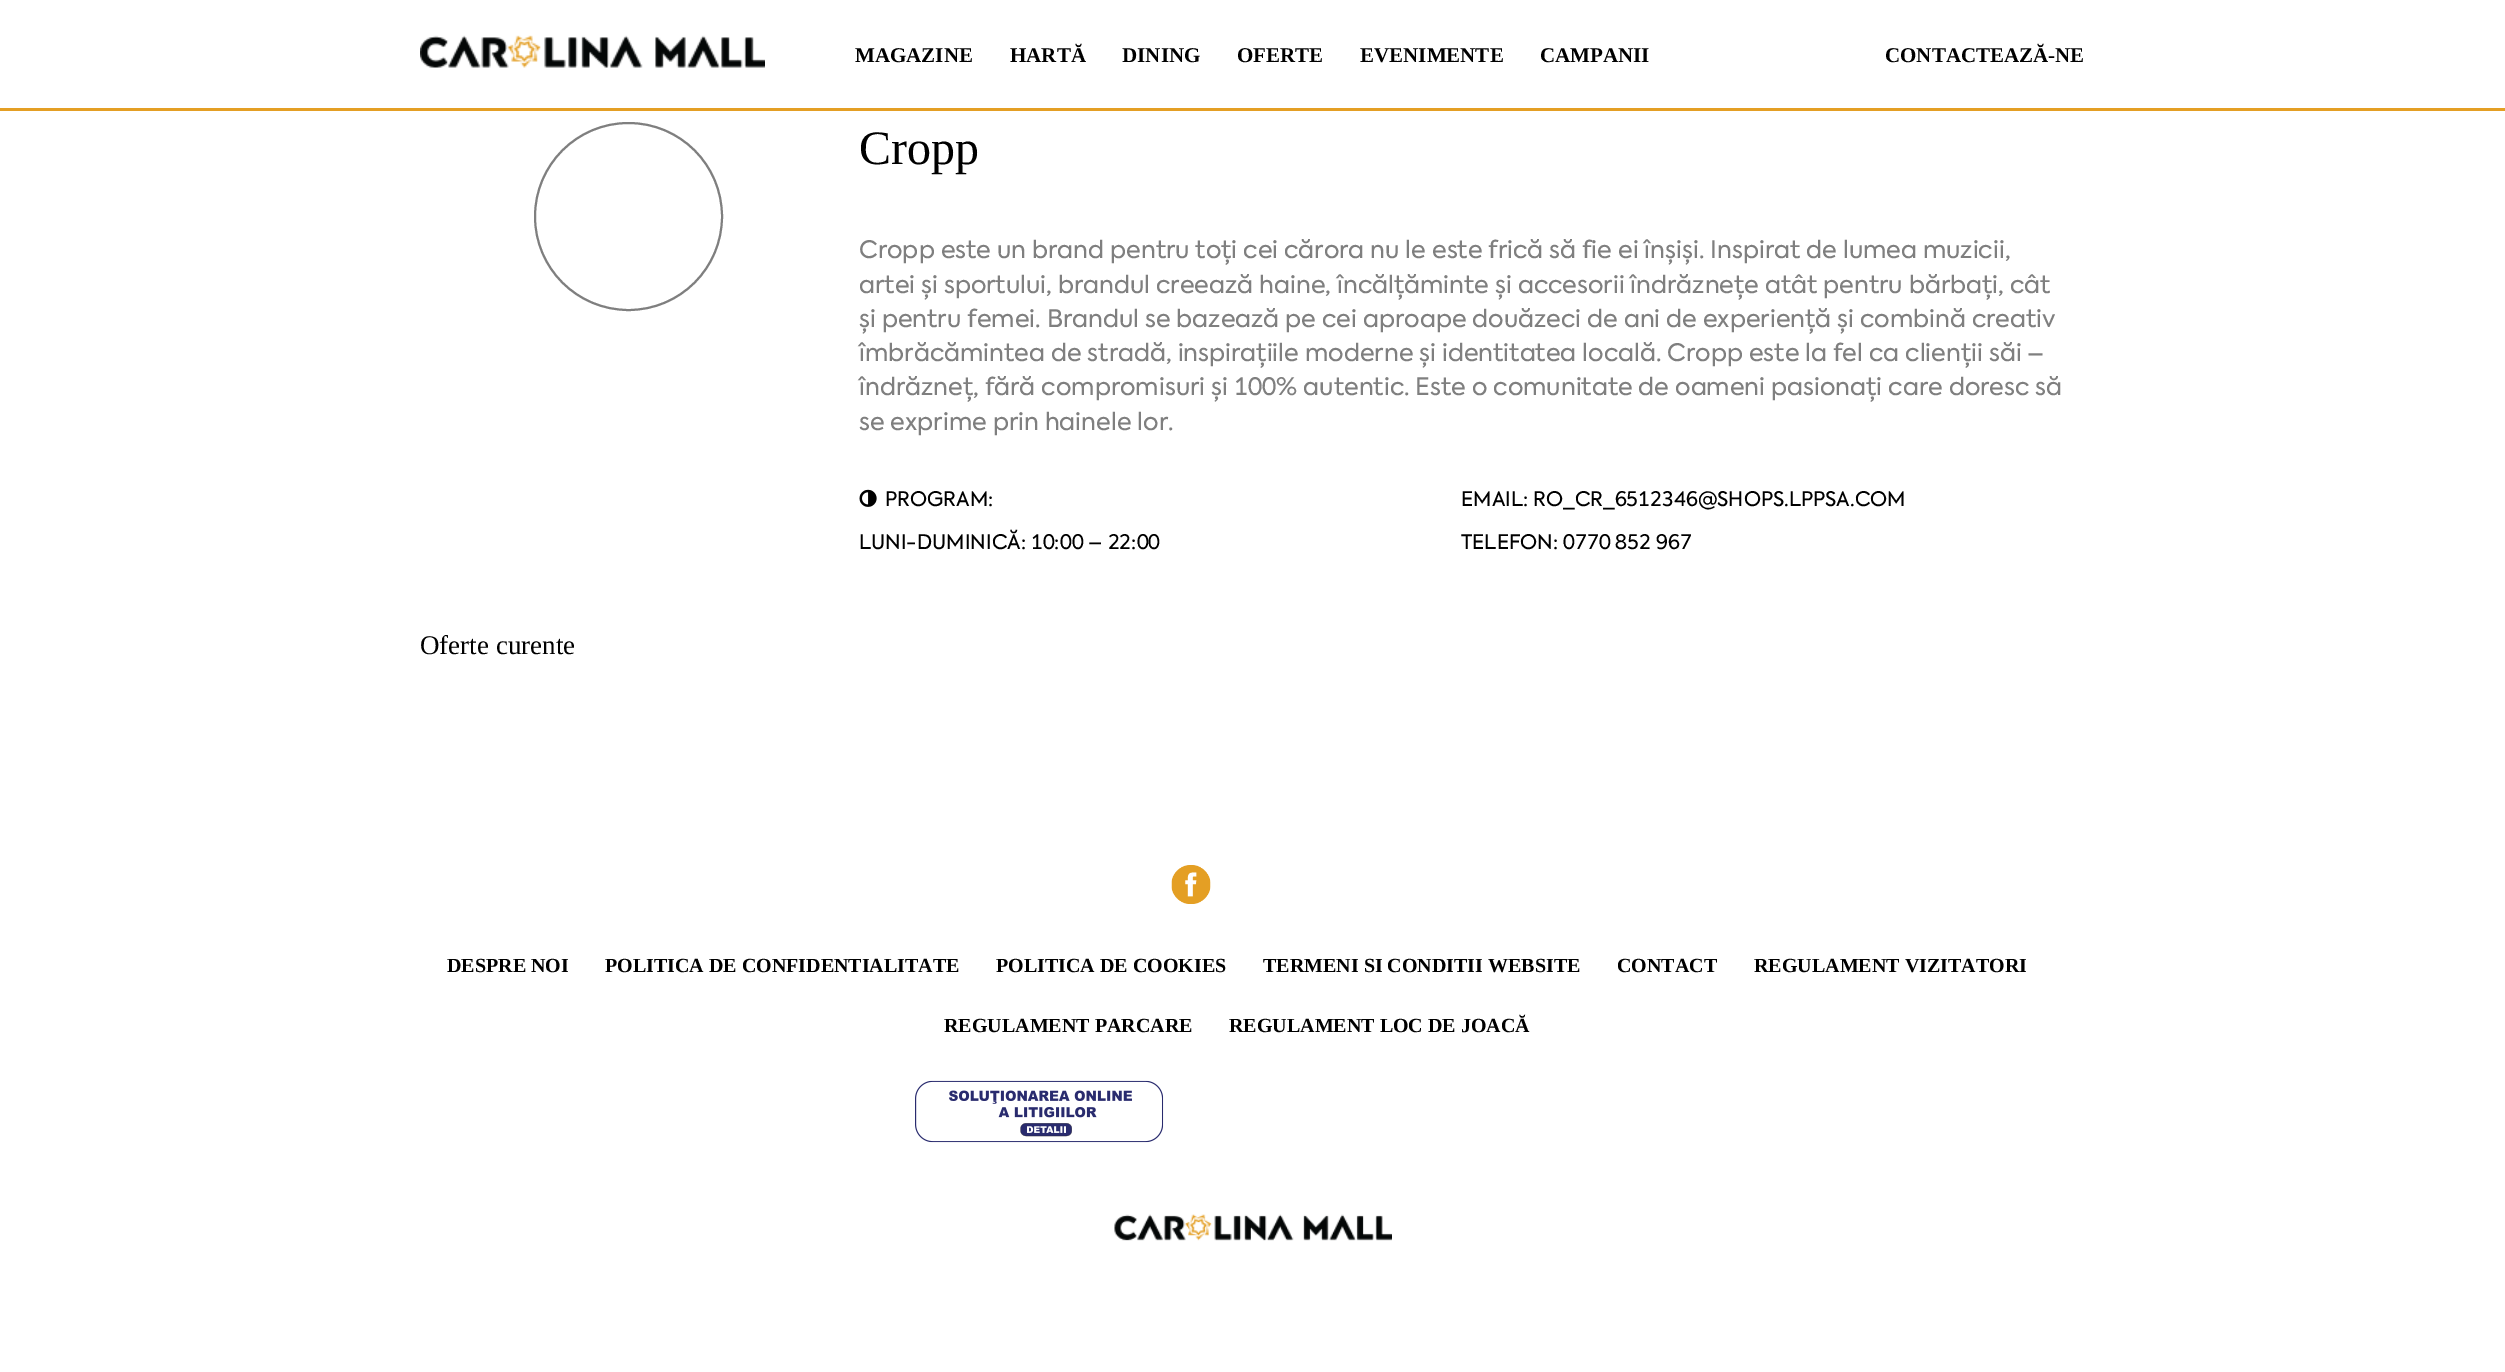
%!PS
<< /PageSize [2505 1372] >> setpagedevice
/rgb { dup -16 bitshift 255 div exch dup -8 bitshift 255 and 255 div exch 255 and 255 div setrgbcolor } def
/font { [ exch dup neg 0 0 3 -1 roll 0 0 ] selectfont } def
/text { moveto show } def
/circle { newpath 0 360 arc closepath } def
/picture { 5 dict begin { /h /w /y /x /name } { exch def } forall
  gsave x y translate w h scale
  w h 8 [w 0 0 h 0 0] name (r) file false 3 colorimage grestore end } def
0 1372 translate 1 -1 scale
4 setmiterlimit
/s1 { /LiberationSerif-Bold 21 font 16#000000 rgb } def
/s2 { /LiberationSerif-Regular 48 font 16#000000 rgb } def
/s3 { /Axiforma-Regular 24 font 16#7F7F7F rgb } def
/s4 { /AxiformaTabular-Regular 24 font 16#7F7F7F rgb } def
/s5 { /Axiforma-Regular 20 font 16#000000 rgb } def
/s6 { /AxiformaTabular-Regular 20 font 16#000000 rgb } def
/s7 { /LiberationSerif-Regular 27 font 16#000000 rgb } def
/s8 { /LiberationSerif-Bold 20 font 16#000000 rgb } def
16#FFFFFF rgb
0 0 2505 1372 rectfill
16#E49F24 rgb
0 108 2505 3 rectfill
(pic1.raw) 420 35 345 33 picture
s1
(MAGAZINE) 855 62 text
(HARTĂ) 1010 62 text
(DINING) 1122 62 text
(OFERTE) 1237 62 text
(EVENIMENTE) 1360 62 text
(CAMPANII) 1540 62 text
(CONTACTEAZĂ-NE) 1885 62 text
16#7F7F7F rgb
2 setlinewidth
628.5 216.5 93.5 circle stroke
s2
(Cropp) 859 164 text
s3
(Cropp este un brand pentru toți cei cărora nu le este frică să fie ei înșiși. Inspirat de lumea muzicii,) 859 258 text
(artei și sportului, brandul creează haine, încălțăminte și accesorii îndrăznețe atât pentru bărbați, cât) 859 293 text
(și pentru femei. Brandul se bazează pe cei aproape douăzeci de ani de experiență și combină creativ) 859 327 text
(îmbrăcămintea de stradă, inspirațiile moderne și identitatea locală. Cropp este la fel ca clienții săi –) 859 361 text
s4
(îndrăzneț, fără compromisuri și 100% autentic. Este o comunitate de oameni pasionați care doresc să) 859 395 text
s3
(se exprime prin hainele lor.) 859 430 text
(pic2.raw) 859 489 18 18 picture
s5
(PROGRAM:) 885 506 text
s6
(LUNI-DUMINICĂ: 10:00 – 22:00) 859 549 text
s5
(EMAIL:) 1461 506 text
s6
(RO_CR_6512346@SHOPS.LPPSA.COM) 1533 506 text
s5
(TELEFON:) 1461 549 text
s6
(0770 852 967) 1563 549 text
s7
(Oferte curente) 420 654 text
(pic3.raw) 1171 865 40 39 picture
s8
(DESPRE NOI) 447 972 text
(POLITICA DE CONFIDENTIALITATE) 605 972 text
(POLITICA DE COOKIES) 996 972 text
(TERMENI SI CONDITII WEBSITE) 1263 972 text
(CONTACT) 1617 972 text
(REGULAMENT VIZITATORI) 1754 972 text
(REGULAMENT PARCARE) 944 1032 text
(REGULAMENT LOC DE JOACĂ) 1229 1032 text
(pic4.raw) 915 1080 249 63 picture
(pic5.raw) 1114 1214 278 27 picture
showpage
